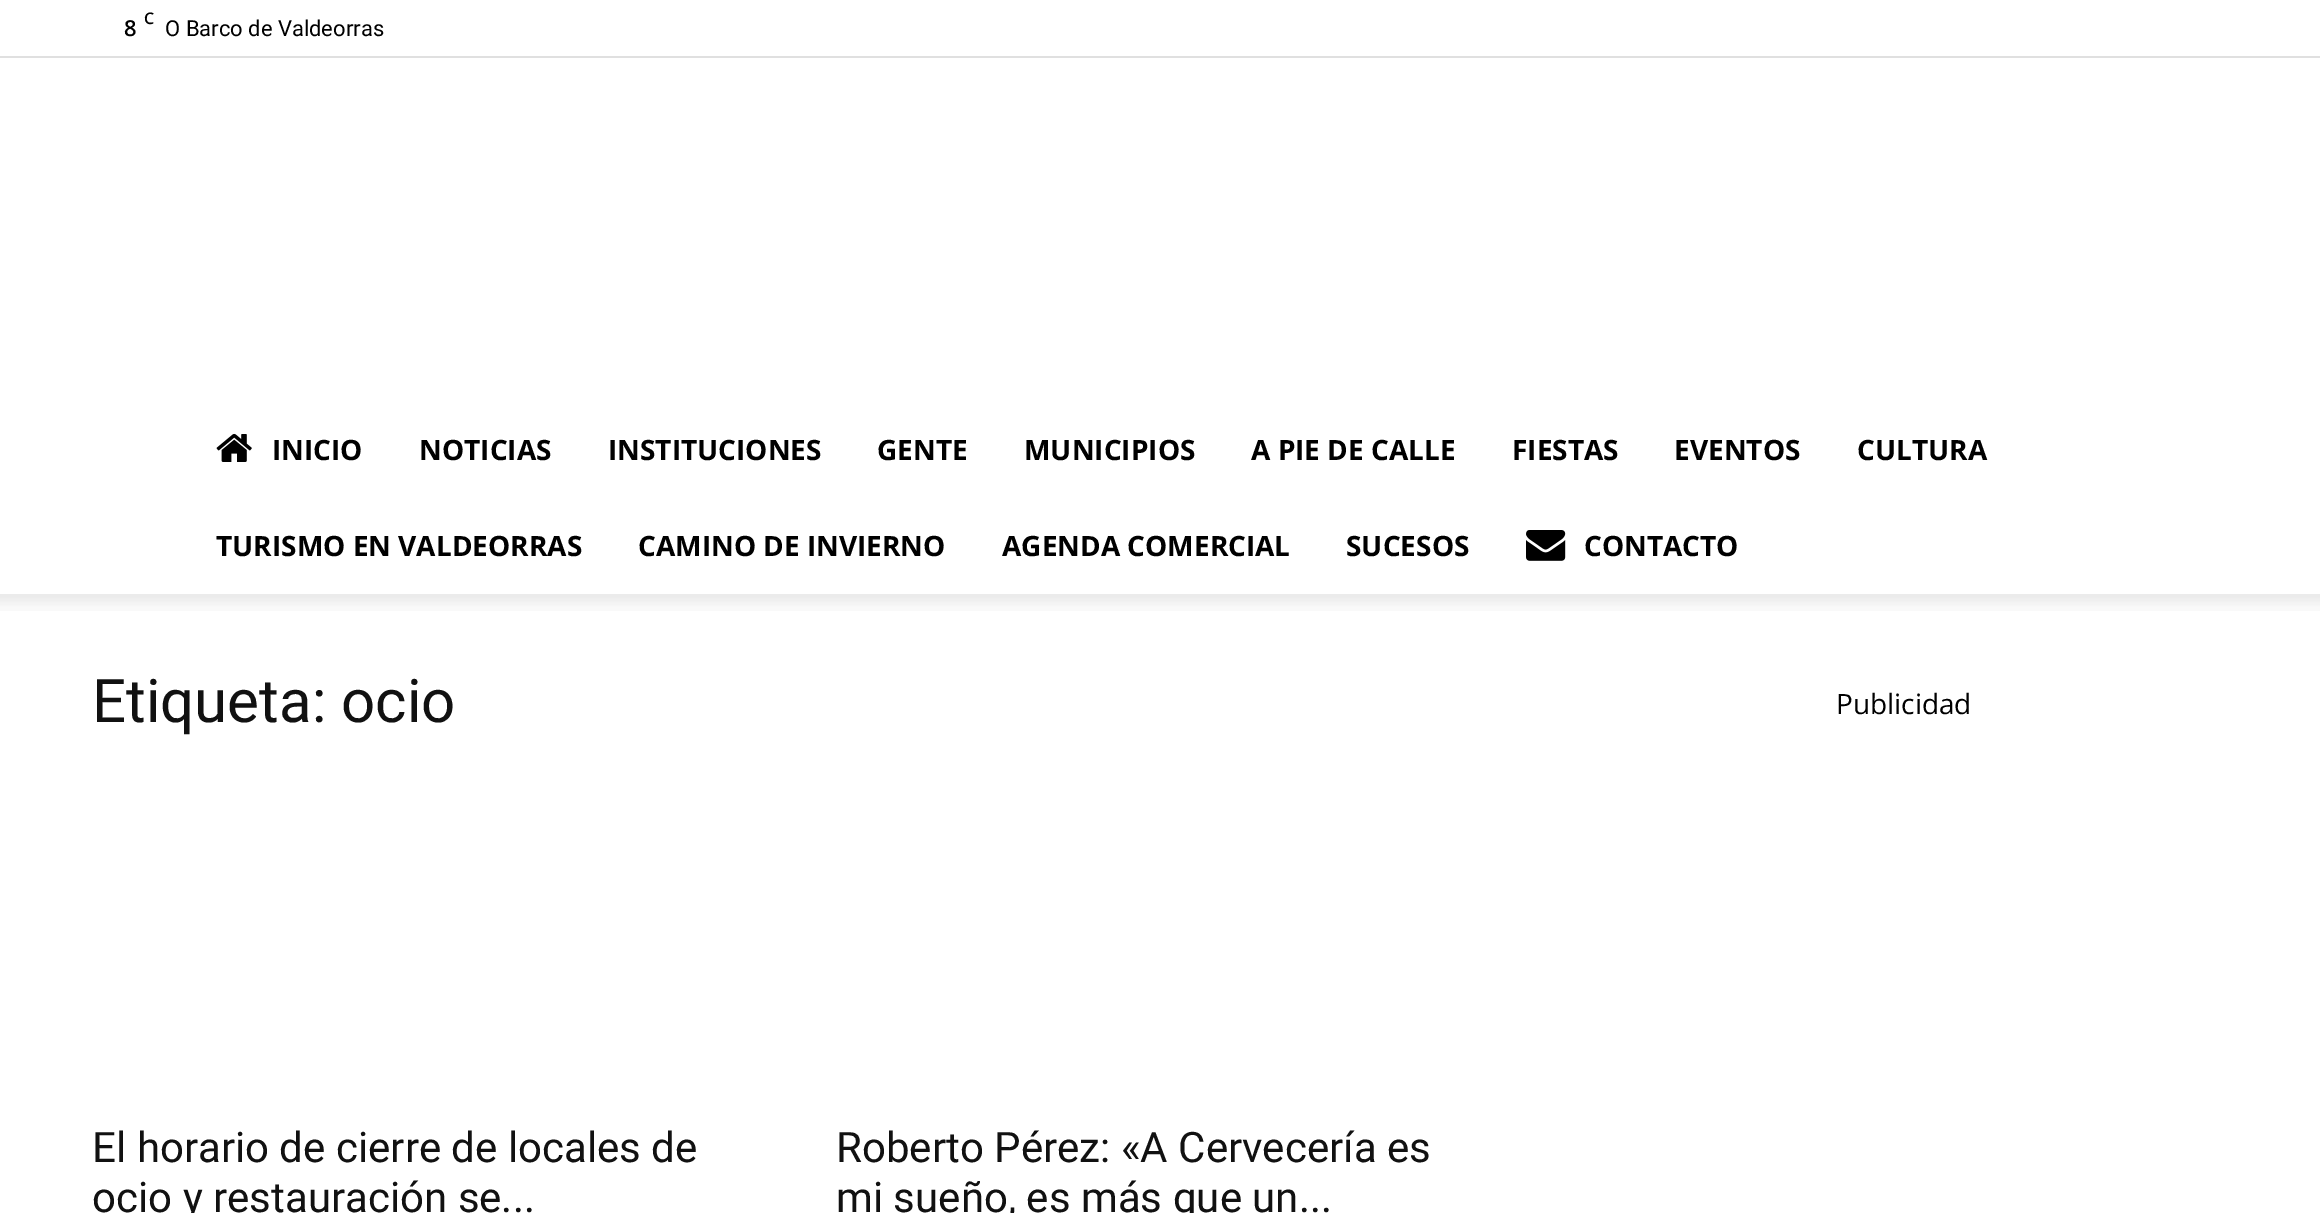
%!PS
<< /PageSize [2320 1213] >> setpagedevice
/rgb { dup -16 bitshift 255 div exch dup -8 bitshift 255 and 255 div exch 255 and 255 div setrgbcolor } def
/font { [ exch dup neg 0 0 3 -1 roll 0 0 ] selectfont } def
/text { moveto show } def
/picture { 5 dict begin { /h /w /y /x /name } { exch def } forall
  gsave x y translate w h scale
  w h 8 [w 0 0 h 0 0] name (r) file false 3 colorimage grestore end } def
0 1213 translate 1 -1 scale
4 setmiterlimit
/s1 { /OpenSans-SemiBold 16 font 16#000000 rgb } def
/s2 { /OpenSans-SemiBold 22 font 16#000000 rgb } def
/s3 { /Roboto-Regular 22 font 16#000000 rgb } def
/s4 { /OpenSans-Bold 28 font 16#000000 rgb } def
/s5 { /Roboto-Regular 60 font 16#111111 rgb } def
/s6 { /Roboto-Regular 42 font 16#111111 rgb } def
/s7 { /OpenSans-Regular 28 font 16#000000 rgb } def
16#FFFFFF rgb
0 0 2320 1213 rectfill
16#E0E0E0 rgb
0 56 2320 2 rectfill
s1
(C) 144 24 text
s2
(8) 124 36 text
s3
(O Barco de Valdeorras) 165 36 text
(pic1.raw) 216 433 36 29 picture
s4
(INICIO) 272 460 text
(NOTICIAS) 419 460 text
(INSTITUCIONES) 608 460 text
(GENTE) 877 460 text
(MUNICIPIOS) 1024 460 text
(A PIE DE CALLE) 1251 460 text
(FIESTAS) 1512 460 text
(EVENTOS) 1674 460 text
(CULTURA) 1857 460 text
(TURISMO EN VALDEORRAS) 216 556 text
(CAMINO DE INVIERNO) 638 556 text
(AGENDA COMERCIAL) 1002 556 text
(SUCESOS) 1346 556 text
(pic2.raw) 1526 530 40 31 picture
(CONTACTO) 1584 556 text
(pic3.raw) 0 594 2320 17 picture
s5
(Etiqueta: ocio) 92 722 text
s6
(El horario de cierre de locales de) 92 1162 text
(ocio y restauración se...) 92 1212 text
(Roberto Pérez: «A Cervecería es) 836 1162 text
(mi sueño, es más que un...) 836 1212 text
s7
(Publicidad) 1836 714 text
showpage
